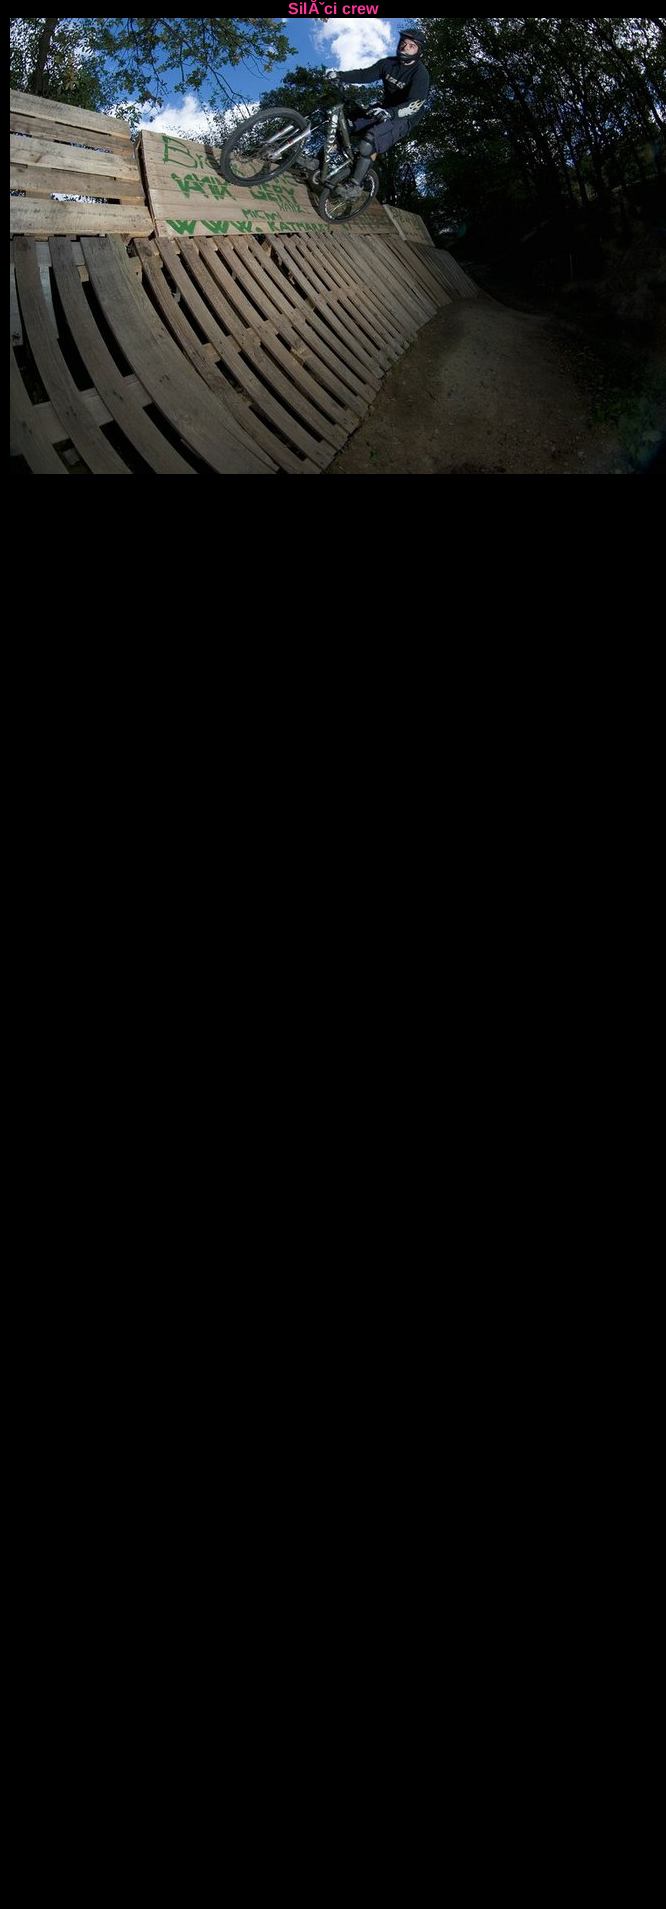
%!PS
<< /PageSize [666 1909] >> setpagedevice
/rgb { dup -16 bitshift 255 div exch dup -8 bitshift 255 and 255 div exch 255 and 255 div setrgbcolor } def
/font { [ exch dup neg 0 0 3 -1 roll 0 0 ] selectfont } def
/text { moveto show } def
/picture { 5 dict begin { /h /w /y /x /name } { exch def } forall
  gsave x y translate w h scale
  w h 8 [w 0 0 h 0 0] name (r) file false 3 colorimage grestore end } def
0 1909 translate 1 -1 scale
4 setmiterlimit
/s1 { /LiberationSans-Bold 16 font 16#FF3399 rgb } def
16#000000 rgb
0 0 666 1909 rectfill
s1
(SilĂˇci crew) 288 14 text
(pic1.raw) 10 18 656 456 picture
showpage
